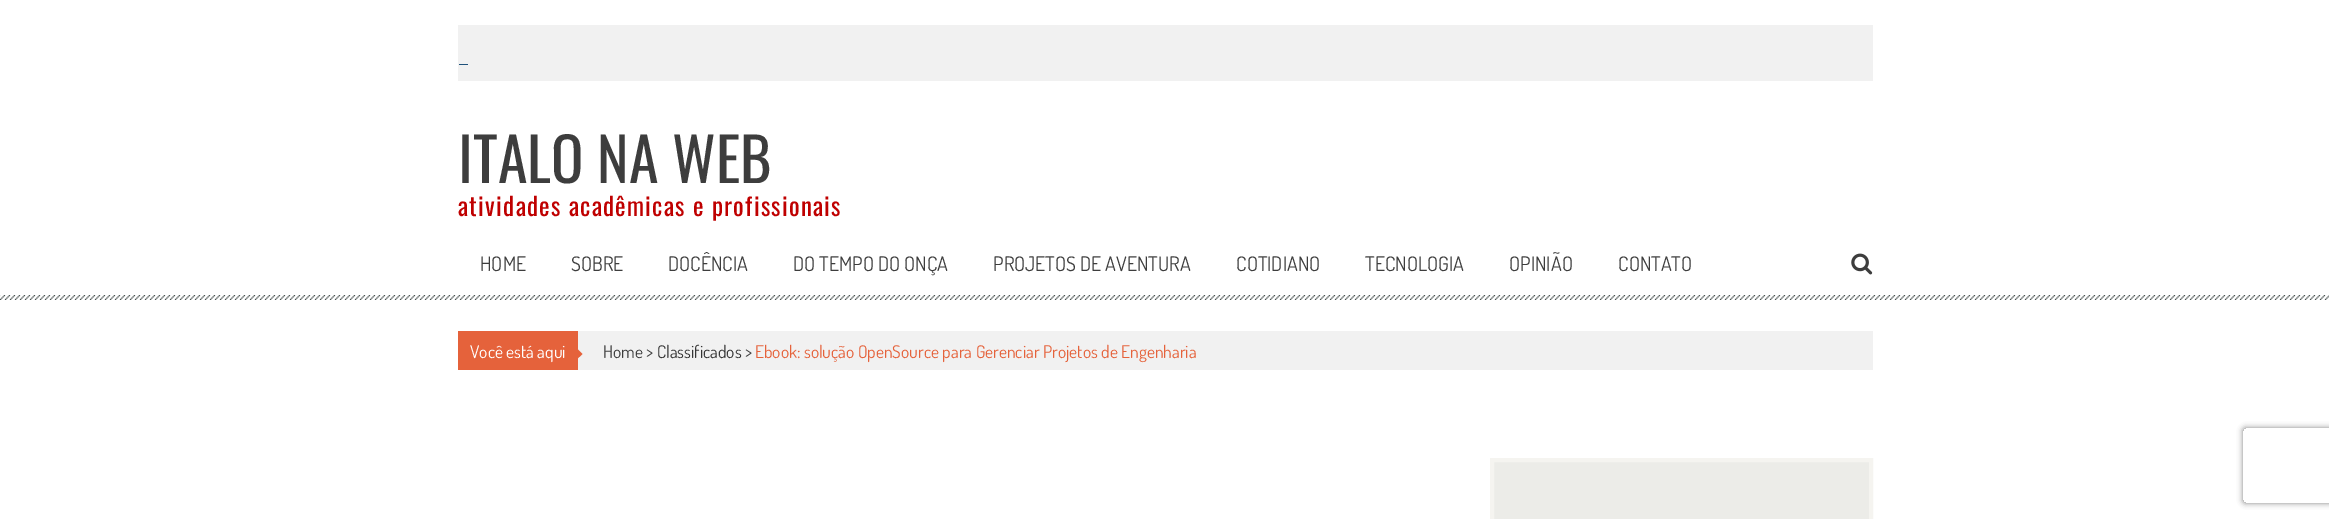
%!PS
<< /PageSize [2329 519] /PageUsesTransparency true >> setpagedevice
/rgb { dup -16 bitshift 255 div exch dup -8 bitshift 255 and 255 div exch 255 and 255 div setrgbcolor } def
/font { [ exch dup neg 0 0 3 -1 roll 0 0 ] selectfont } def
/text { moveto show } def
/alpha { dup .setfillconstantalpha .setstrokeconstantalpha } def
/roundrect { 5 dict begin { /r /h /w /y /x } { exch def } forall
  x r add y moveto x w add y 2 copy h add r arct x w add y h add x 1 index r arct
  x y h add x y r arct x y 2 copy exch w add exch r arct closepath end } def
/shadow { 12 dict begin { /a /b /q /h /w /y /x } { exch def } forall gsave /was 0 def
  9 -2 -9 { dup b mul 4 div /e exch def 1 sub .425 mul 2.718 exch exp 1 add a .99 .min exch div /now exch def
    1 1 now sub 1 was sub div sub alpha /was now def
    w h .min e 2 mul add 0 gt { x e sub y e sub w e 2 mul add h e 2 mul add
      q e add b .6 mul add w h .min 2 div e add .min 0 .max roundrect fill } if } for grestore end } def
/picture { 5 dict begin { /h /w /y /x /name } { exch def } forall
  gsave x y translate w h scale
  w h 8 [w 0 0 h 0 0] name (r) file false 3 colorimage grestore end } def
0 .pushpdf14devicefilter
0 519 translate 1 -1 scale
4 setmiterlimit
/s1 { /Oswald-Regular 60 font 16#3D3D3D rgb } def
/s2 { /Dosis-Regular 20 font 16#3D3D3D rgb } def
/s3 { /Dosis-Regular 17.5 font 16#FFFFFF rgb } def
/s4 { /Dosis-Regular 17.5 font 16#3D3D3D rgb } def
/s5 { /Dosis-Regular 17.5 font 16#363636 rgb } def
/s6 { /Dosis-Regular 17.5 font 16#E5623B rgb } def
16#FFFFFF rgb
0 0 2329 519 rectfill
16#F1F1F1 rgb
458 25 1415 56 rectfill
16#1F527B rgb
459 64 9 1 rectfill
s1
(ITALO NA WEB) 458 183 text
/Oswald-Regular 25 font
16#BF0000 rgb
458 216 moveto 1.25 0 (atividades acadêmicas e profissionais) ashow
(pic1.raw) 0 295 2329 5 picture
s2
(HOME) 480 271 text
(SOBRE) 571 271 text
(DOCÊNCIA) 668 271 text
(DO TEMPO DO ONÇA) 793 271 text
(PROJETOS DE AVENTURA) 993 271 text
(COTIDIANO) 1236 271 text
(TECNOLOGIA) 1365 271 text
(OPINIÃO) 1509 271 text
(CONTATO) 1618 271 text
(pic2.raw) 1851 253 22 22 picture
16#F1F1F1 rgb
578 331 1295 39 rectfill
16#E5623B rgb
458 331 120 39 rectfill
s3
(Você está aqui) 470 358 text
16#E5623B rgb
576 360 moveto 576 347.5 lineto 582.5 354 lineto closepath fill
s4
(Home >) 603 358 text
s5
(Classificados) 657 358 text
s4
(>) 745 358 text
s6
(Ebook: solução OpenSource para Gerenciar Projetos de Engenharia) 755 358 text
16#ECECE8 rgb
1492 460 moveto 1871 460 lineto 1871 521 lineto 1492 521 lineto closepath gsave fill grestore
16#F5F4F0 rgb
4 setlinewidth
stroke
gsave
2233 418 moveto 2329 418 lineto 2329 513 lineto 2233 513 lineto closepath 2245.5 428 moveto 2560.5 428 lineto 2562 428 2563 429 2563 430.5 curveto 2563 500.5 lineto 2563 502 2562 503 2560.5 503 curveto 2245.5 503 lineto 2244 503 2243 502 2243 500.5 curveto 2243 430.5 lineto 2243 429 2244 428 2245.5 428 curveto closepath eoclip newpath
16#808080 rgb
2243 428 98 75 2.5 3 1 shadow
grestore
.poppdf14devicefilter showpage
